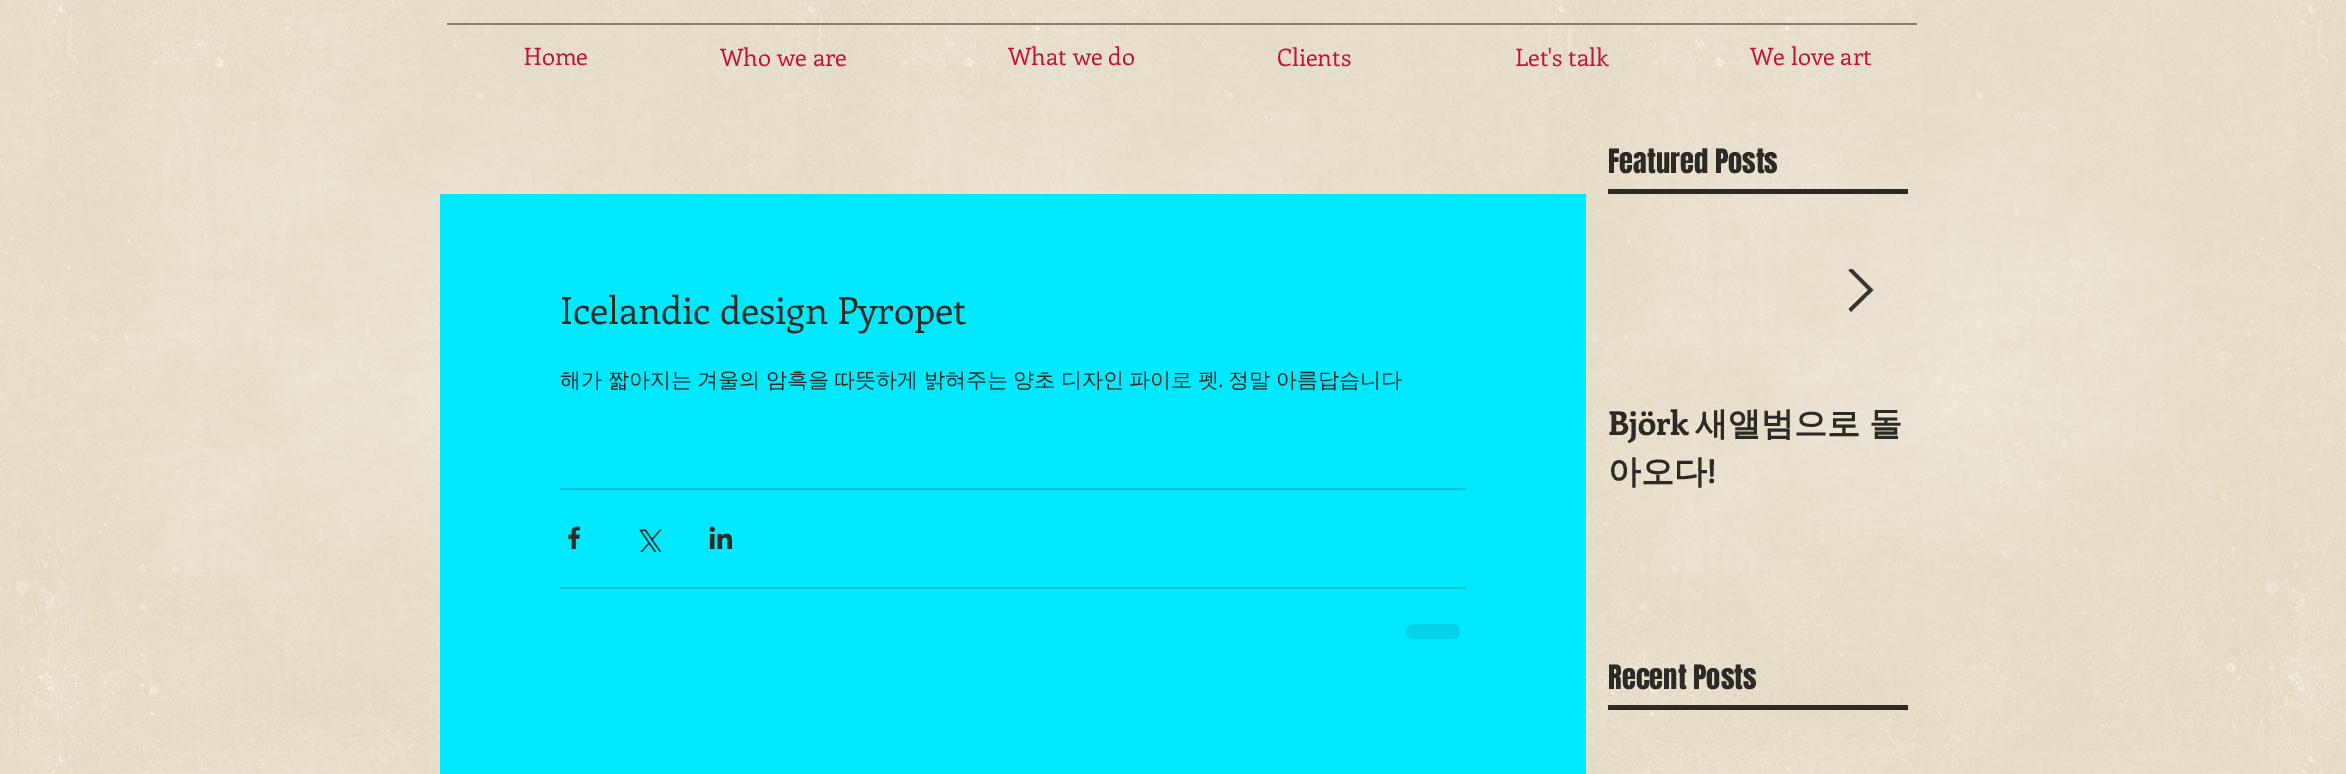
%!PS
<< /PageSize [2346 774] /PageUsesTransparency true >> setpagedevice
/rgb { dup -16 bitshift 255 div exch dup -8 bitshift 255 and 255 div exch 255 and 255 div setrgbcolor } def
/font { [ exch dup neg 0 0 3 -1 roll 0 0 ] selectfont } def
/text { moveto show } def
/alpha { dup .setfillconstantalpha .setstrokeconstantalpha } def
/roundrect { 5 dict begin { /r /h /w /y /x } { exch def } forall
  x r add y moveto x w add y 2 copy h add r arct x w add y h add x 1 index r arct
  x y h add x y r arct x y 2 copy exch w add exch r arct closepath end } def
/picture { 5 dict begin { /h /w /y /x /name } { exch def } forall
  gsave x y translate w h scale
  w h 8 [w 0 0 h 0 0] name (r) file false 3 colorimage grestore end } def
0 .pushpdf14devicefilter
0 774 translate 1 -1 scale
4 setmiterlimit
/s1 { /Enriqueta-Regular 24 font 16#BF1338 rgb } def
/s2 { /Anton-Regular 28.5 font 16#2C2A25 rgb } def
/s3 { /Enriqueta-Regular 37.5 font 16#2C2A25 rgb } def
/s4 { /OpenSans-Regular 21 font 16#2C2A25 rgb } def
/s5 { /Enriqueta-Bold 33 font 16#2C2A25 rgb } def
/s6 { /WenQuanYiZenHei-Bold 33 font 16#2C2A25 rgb } def
16#E3D9C2 rgb
0 0 2346 774 rectfill
(pic1.raw) 0 0 2346 774 picture
16#857F6F rgb
447 23 1470 2 rectfill
s1
(Home) 524 65 text
(Who we are) 720 66 text
(What we do) 1008 65 text
(Clients) 1277 66 text
(Let's talk) 1515 66 text
(We love art) 1750 65 text
s2
(Featured Posts) 1608 173 text
1608 189 300 5 rectfill
16#00E9FF rgb
440 194 1146 580 rectfill
s3
(Icelandic design Pyropet) 560 324 text
/WenQuanYiZenHei-Medium 21 font
560 387 moveto -0.75 0 32 (해가 짧아지는 겨울의 암흑을 따뜻하게 밝혀주는 양초 디자인 파이로 펫) widthshow
s4
(.) 1218 387 text
/WenQuanYiZenHei-Medium 21 font
1228 387 moveto -0.75 0 32 (정말 아름답습니다) widthshow
16#09C3D3 rgb
560 488 906 2 rectfill
(pic2.raw) 568 526 12 23 picture
(pic3.raw) 639 529 23 23 picture
(pic4.raw) 709 526 23 23 picture
560 587 906 2 rectfill
16#05D2E5 rgb
1406 624 54 15 7.5 roundrect fill
0.9 alpha
16#2C2A25 rgb
1849 270 moveto 1851 269 lineto 1872 290 lineto 1851 311 lineto 1849 309 lineto 1869 290 lineto closepath fill
gsave
1847 269 27 45 rectclip
1.2 setlinewidth
1849.5 270.5 moveto 1851 268.5 lineto 1872.5 290 lineto 1851 311 lineto 1849.5 309 lineto 1869 290 lineto closepath stroke
grestore
1 alpha
s5
(Björk) 1608 435 text
/WenQuanYiZenHei-Bold 33 font
1695 435 moveto -1 0 32 (새앨범으로 돌) widthshow
(아오다) 1608 483 text
s5
(!) 1707 483 text
s2
(Recent Posts) 1608 689 text
1608 705 300 5 rectfill
.poppdf14devicefilter showpage
